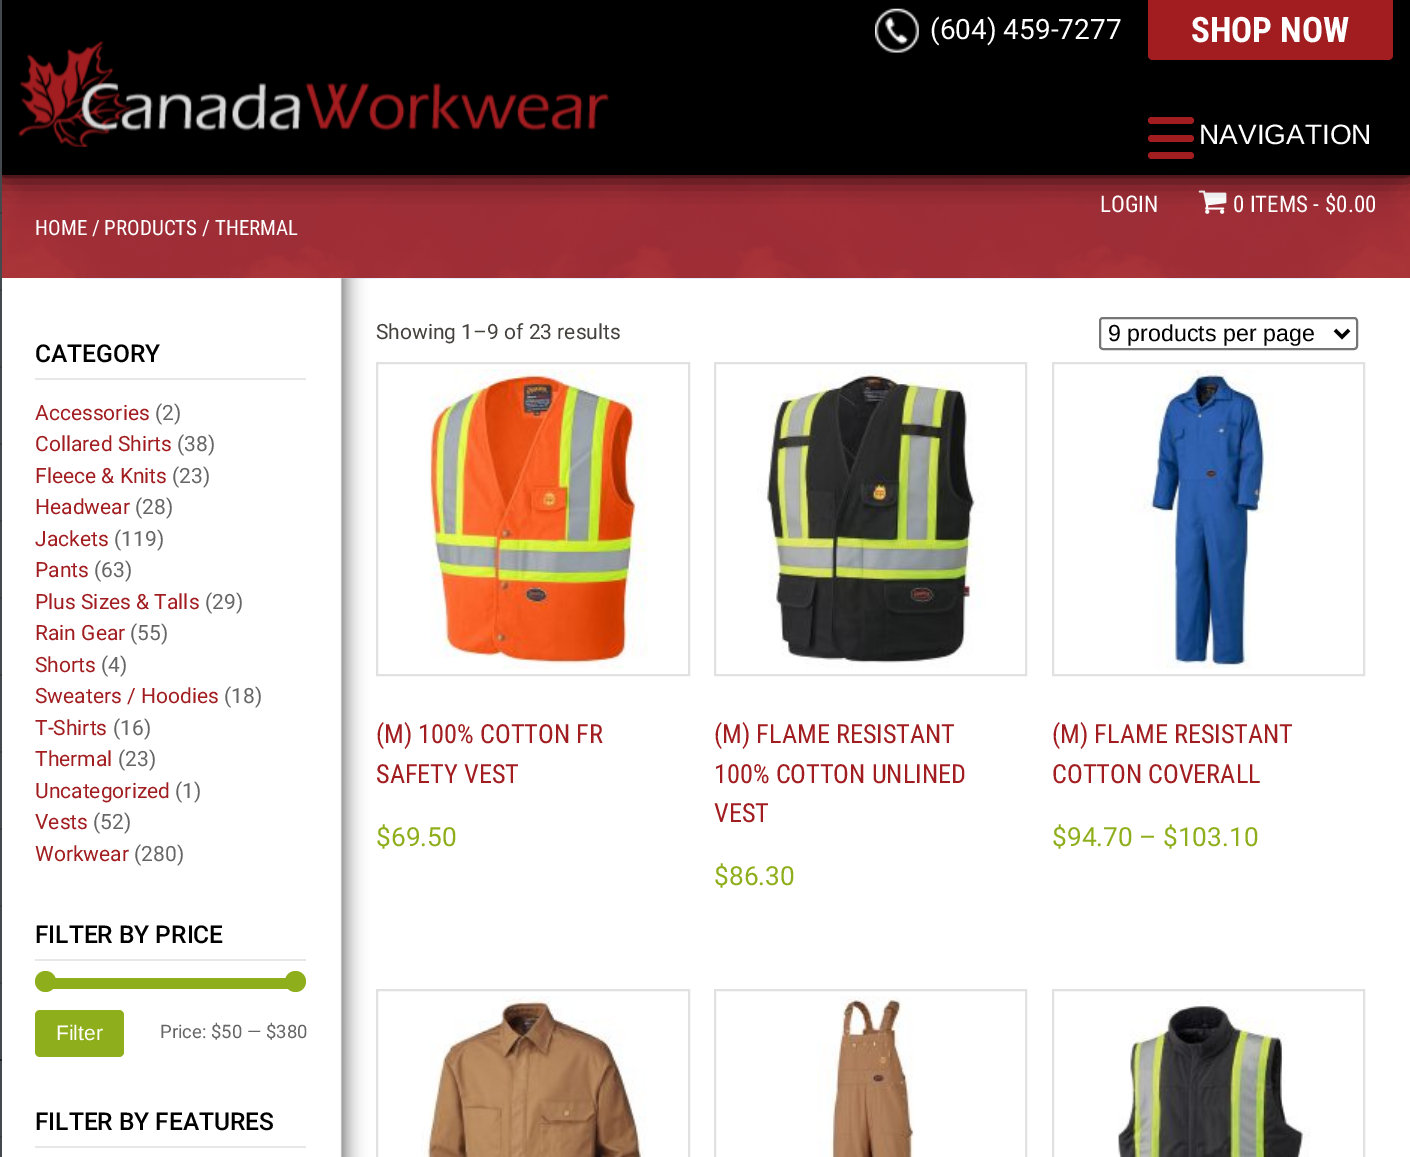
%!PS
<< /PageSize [1410 1157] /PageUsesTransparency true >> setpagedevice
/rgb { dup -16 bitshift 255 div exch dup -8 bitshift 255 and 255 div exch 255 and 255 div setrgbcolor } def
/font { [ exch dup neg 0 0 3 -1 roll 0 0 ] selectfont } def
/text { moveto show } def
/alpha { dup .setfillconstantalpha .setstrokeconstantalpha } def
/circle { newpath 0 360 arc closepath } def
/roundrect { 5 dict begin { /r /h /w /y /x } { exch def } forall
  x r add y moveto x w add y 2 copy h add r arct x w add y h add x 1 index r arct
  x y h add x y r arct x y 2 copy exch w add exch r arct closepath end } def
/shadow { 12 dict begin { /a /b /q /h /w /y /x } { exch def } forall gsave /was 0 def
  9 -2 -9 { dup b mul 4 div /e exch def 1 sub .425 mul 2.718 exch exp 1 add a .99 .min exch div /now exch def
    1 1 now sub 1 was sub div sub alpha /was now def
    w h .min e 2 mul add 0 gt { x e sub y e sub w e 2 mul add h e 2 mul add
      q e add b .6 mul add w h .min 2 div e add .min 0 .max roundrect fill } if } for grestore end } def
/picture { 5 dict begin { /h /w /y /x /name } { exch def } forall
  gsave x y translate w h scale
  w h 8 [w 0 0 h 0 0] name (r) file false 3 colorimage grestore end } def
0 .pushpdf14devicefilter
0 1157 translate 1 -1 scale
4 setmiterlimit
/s1 { /Roboto-Regular 28 font 16#FFFFFF rgb } def
/s2 { /RobotoCondensed-Bold 35 font 16#FFFFFF rgb } def
/s3 { /LiberationSans-Regular 28 font 16#FFFFFF rgb } def
/s4 { /RobotoCondensed-Regular 23 font 16#FFFFFF rgb } def
/s5 { /RobotoCondensed-Regular 21 font 16#FFFFFF rgb } def
/s6 { /Roboto-Medium 24.5 font 16#000000 rgb } def
/s7 { /Roboto-Regular 21 font 16#A11D20 rgb } def
/s8 { /Roboto-Regular 21 font 16#666666 rgb } def
/s9 { /LiberationSans-Regular 21 font 16#FFFFFF rgb } def
/s10 { /Roboto-Regular 18.5 font 16#666666 rgb } def
/s11 { /Roboto-Regular 21 font 16#45423E rgb } def
/s12 { /LiberationSans-Regular 23.25 font 16#000000 rgb } def
/s13 { /RobotoCondensed-Regular 26.25 font 16#A11D20 rgb } def
/s14 { /Roboto-Regular 26.25 font 16#8FAE1B rgb } def
16#FFFFFF rgb
0 0 1410 1157 rectfill
(pic1.raw) 2 175 1408 104 picture
0.9 alpha
16#A11F23 rgb
2 175 1408 103 rectfill
1 alpha
(pic4.raw) 1198 190 29 24 picture
16#000000 rgb
0 0 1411 175 0 13 1 shadow
16#43494C rgb
0 0 2 1157 rectfill
16#3C3C3C rgb
0 212 2 2 rectfill
0 289 2 2 rectfill
0 366 2 2 rectfill
0 443 2 2 rectfill
0 520 2 2 rectfill
0 597 2 2 rectfill
0 674 2 2 rectfill
0 751 2 2 rectfill
0 828 2 2 rectfill
0 905 2 2 rectfill
0 982 2 2 rectfill
16#212121 rgb
0 1059 2 2 rectfill
16#3C3C3C rgb
0 1136 2 2 rectfill
16#000000 rgb
2 0 1408 175 rectfill
(pic2.raw) 875 8 44 45 picture
s1
(\(604\) 459-7277) 930 39 text
16#A11D20 rgb
1148 0 moveto 1393 0 lineto 1393 55 lineto 1393 58 1391 60 1388 60 curveto 1153 60 lineto 1150 60 1148 58 1148 55 curveto closepath fill
s2
(SHOP NOW) 1191 42 text
(pic3.raw) 18 41 591 106 picture
16#A11D20 rgb
1148 135 46 7 3.5 roundrect fill
1148 117 46 7 3.5 roundrect fill
1148 152 46 7 3.5 roundrect fill
s3
(NAVIGATION) 1199 144 text
s4
(LOGIN) 1100 212 text
(0 ITEMS) 1233 212 text
(-) 1313 212 text
($0.00) 1325 212 text
s5
(HOME / PRODUCTS / THERMAL) 35 235 text
(pic5.raw) 2 278 1408 879 picture
16#E7E7E7 rgb
35 378 271 2 rectfill
s6
(CATEGORY) 35 362 text
s7
(Accessories) 35 420 text
s8
(\(2\)) 155 420 text
s7
(Collared Shirts) 35 451 text
s8
(\(38\)) 177 451 text
s7
(Fleece & Knits) 35 483 text
s8
(\(23\)) 172 483 text
s7
(Headwear) 35 514 text
s8
(\(28\)) 135 514 text
s7
(Jackets) 35 546 text
s8
(\(119\)) 114 546 text
s7
(Pants) 35 577 text
s8
(\(63\)) 94 577 text
s7
(Plus Sizes & Talls) 35 609 text
s8
(\(29\)) 205 609 text
s7
(Rain Gear) 35 640 text
s8
(\(55\)) 130 640 text
s7
(Shorts) 35 672 text
s8
(\(4\)) 101 672 text
s7
(Sweaters / Hoodies) 35 703 text
s8
(\(18\)) 224 703 text
s7
(T-Shirts) 35 735 text
s8
(\(16\)) 113 735 text
s7
(Thermal) 35 766 text
s8
(\(23\)) 118 766 text
s7
(Uncategorized) 35 798 text
s8
(\(1\)) 175 798 text
s7
(Vests) 35 829 text
s8
(\(52\)) 93 829 text
s7
(Workwear) 35 861 text
s8
(\(280\)) 134 861 text
16#E7E7E7 rgb
35 959 271 2 rectfill
s6
(FILTER BY PRICE) 35 943 text
16#8FAE1B rgb
52 978 237 11 rectfill
45.5 981.5 10.5 circle fill
295.5 981.5 10.5 circle fill
35 1010 89 47 5 roundrect fill
s9
(Filter) 56 1040 text
s10
(Price: $50 — $380) 160 1038 text
16#E7E7E7 rgb
35 1146 271 2 rectfill
s6
(FILTER BY FEATURES) 35 1130 text
s11
(Showing 1–9 of 23 results) 376 339 text
16#767676 rgb
2 setlinewidth
1100 318 257 31 3 roundrect stroke
16#000000 rgb
3.5 setlinewidth
1335 330 moveto 1342 337 lineto 1349 330 lineto stroke
s12
(9 products per page) 1108 341 text
16#E1E1E1 rgb
2 setlinewidth
377 363 312 312 rectstroke
(pic6.raw) 429 369 219 300 picture
s13
(\(M\) 100% COTTON FR) 376 743 text
(SAFETY VEST) 376 783 text
s14
($69.50) 376 846 text
16#E1E1E1 rgb
715 363 311 312 rectstroke
(pic7.raw) 757 369 228 299 picture
s13
(\(M\) FLAME RESISTANT) 714 743 text
(100% COTTON UNLINED) 714 783 text
(VEST) 714 822 text
s14
($86.30) 714 885 text
16#E1E1E1 rgb
1053 363 311 312 rectstroke
(pic8.raw) 1131 369 143 300 picture
s13
(\(M\) FLAME RESISTANT) 1052 743 text
(COTTON COVERALL) 1052 783 text
s14
($94.70 – $103.10) 1052 846 text
16#E1E1E1 rgb
377 990 312 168 rectstroke
(pic9.raw) 421 996 226 161 picture
715 990 311 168 rectstroke
(pic10.raw) 817 996 98 161 picture
1053 990 311 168 rectstroke
(pic11.raw) 1118 999 192 158 picture
.poppdf14devicefilter showpage
